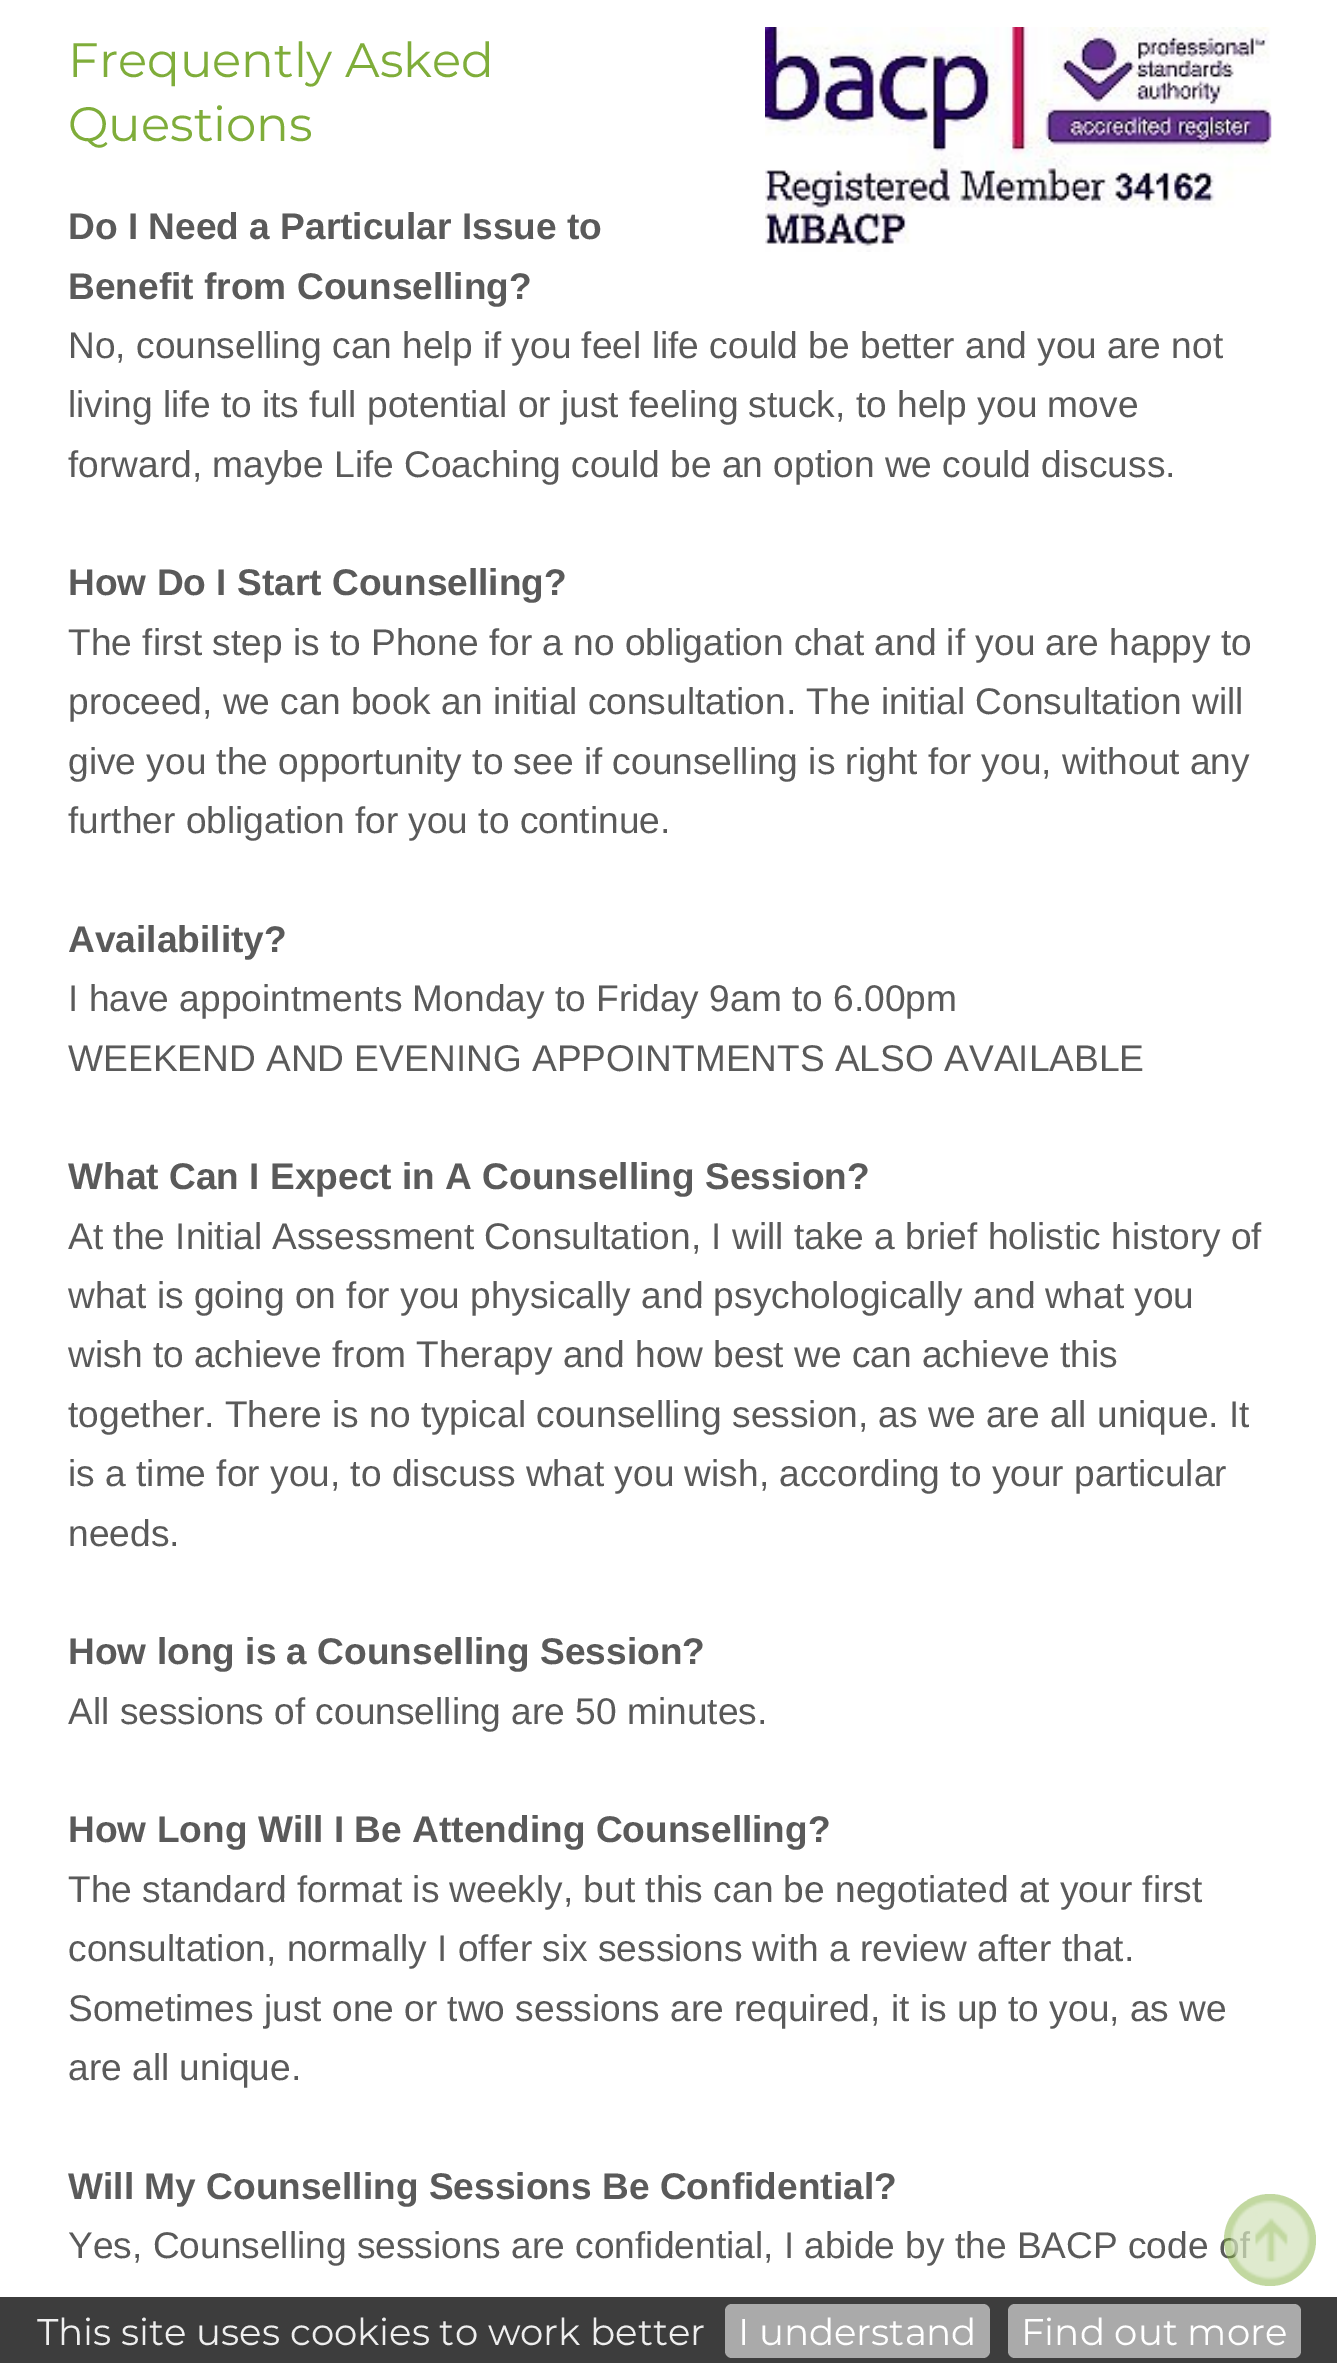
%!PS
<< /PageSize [1337 2363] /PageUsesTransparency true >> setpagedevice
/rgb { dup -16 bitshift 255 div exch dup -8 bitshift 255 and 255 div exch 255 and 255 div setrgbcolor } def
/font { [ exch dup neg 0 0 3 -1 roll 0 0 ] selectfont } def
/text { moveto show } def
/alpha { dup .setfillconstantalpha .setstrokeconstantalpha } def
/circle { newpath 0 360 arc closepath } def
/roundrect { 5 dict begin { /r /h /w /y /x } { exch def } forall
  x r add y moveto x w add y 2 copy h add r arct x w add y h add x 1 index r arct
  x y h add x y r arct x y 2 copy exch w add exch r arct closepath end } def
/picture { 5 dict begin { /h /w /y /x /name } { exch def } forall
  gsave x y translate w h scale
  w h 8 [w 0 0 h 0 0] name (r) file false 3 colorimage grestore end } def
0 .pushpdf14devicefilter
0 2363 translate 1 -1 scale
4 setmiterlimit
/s1 { /Montserrat-Regular 48.25 font 16#7FAD3A rgb } def
/s2 { /LiberationSans-Bold 37.1 font 16#5A5A5A rgb } def
/s3 { /LiberationSans-Regular 37.1 font 16#5A5A5A rgb } def
/s4 { /Montserrat-Regular 37.1 font 16#EEEEEE rgb } def
/s5 { /Montserrat-Regular 37.1 font 16#FFFFFF rgb } def
16#FFFFFF rgb
0 0 1337 2363 rectfill
s1
(Frequently Asked) 68 77 text
(Questions) 68 141 text
(pic1.raw) 765 27 507 225 picture
s2
(Do I Need a Particular Issue to) 68 239 text
(Benefit from Counselling?) 68 299 text
s3
(No, counselling can help if you feel life could be better and you are not) 68 358 text
(living life to its full potential or just feeling stuck, to help you move) 68 417 text
(forward, maybe Life Coaching could be an option we could discuss.) 68 477 text
s2
(How Do I Start Counselling?) 68 595 text
s3
(The first step is to Phone for a no obligation chat and if you are happy to) 68 655 text
(proceed, we can book an initial consultation. The initial Consultation will) 68 714 text
(give you the opportunity to see if counselling is right for you, without any) 68 774 text
(further obligation for you to continue.) 68 833 text
s2
(Availability?) 68 952 text
s3
(I have appointments Monday to Friday 9am to 6.00pm) 68 1011 text
(WEEKEND AND EVENING APPOINTMENTS ALSO AVAILABLE) 68 1071 text
s2
(What Can I Expect in A Counselling Session?) 68 1189 text
s3
(At the Initial Assessment Consultation, I will take a brief holistic history of) 68 1249 text
(what is going on for you physically and psychologically and what you) 68 1308 text
(wish to achieve from Therapy and how best we can achieve this) 68 1367 text
(together. There is no typical counselling session, as we are all unique. It) 68 1427 text
(is a time for you, to discuss what you wish, according to your particular) 68 1486 text
(needs.) 68 1546 text
s2
(How long is a Counselling Session?) 68 1664 text
s3
(All sessions of counselling are 50 minutes.) 68 1724 text
s2
(How Long Will I Be Attending Counselling?) 68 1842 text
s3
(The standard format is weekly, but this can be negotiated at your first) 68 1902 text
(consultation, normally I offer six sessions with a review after that.) 68 1961 text
(Sometimes just one or two sessions are required, it is up to you, as we) 68 2021 text
(are all unique.) 68 2080 text
s2
(Will My Counselling Sessions Be Confidential?) 68 2199 text
s3
(Yes, Counselling sessions are confidential, I abide by the BACP code o) 68 2258 text
0.48 alpha
16#7FAD3A rgb
1270 2240 46 circle fill
1 alpha
(pic2.raw) 1230 2200 80 80 picture
16#3D3D3D rgb
0 2297 1337 66 rectfill
s4
(This site uses cookies to work better) 37 2345 text
16#AAAAAA rgb
725 2304 265 54 7 roundrect fill
s5
(I understand) 738 2345 text
16#AAAAAA rgb
1008 2304 293 54 7 roundrect fill
s5
(Find out more) 1021 2345 text
.poppdf14devicefilter showpage
